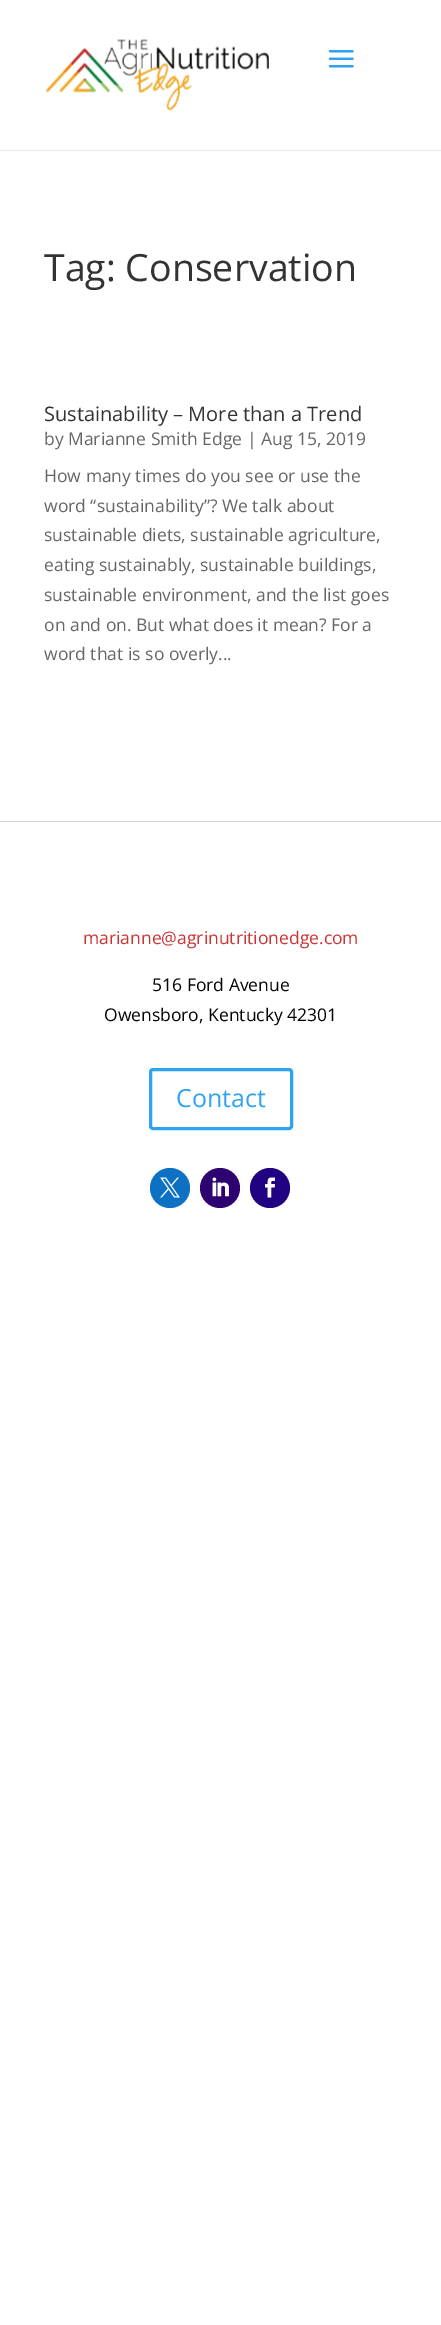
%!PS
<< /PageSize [441 2325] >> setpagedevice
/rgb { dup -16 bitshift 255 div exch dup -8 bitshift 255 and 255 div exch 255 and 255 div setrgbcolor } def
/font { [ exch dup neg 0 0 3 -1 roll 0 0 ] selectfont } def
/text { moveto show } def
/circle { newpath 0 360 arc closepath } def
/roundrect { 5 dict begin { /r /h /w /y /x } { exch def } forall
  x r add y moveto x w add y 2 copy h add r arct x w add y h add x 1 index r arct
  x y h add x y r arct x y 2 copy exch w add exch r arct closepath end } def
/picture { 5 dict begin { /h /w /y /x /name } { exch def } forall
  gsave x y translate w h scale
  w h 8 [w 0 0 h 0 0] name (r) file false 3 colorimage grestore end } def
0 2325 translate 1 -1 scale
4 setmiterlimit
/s1 { /OpenSans-Regular 37.5 font 16#333333 rgb } def
/s2 { /OpenSans-Regular 20 font 16#333333 rgb } def
/s3 { /OpenSans-Regular 17.5 font 16#666666 rgb } def
/s4 { /OpenSans-Regular 17.5 font 16#CC3333 rgb } def
/s5 { /OpenSans-Regular 17.5 font 16#020202 rgb } def
/s6 { /OpenSans-Regular 25 font 16#2EA3F2 rgb } def
16#FFFFFF rgb
0 0 441 2325 rectfill
16#E6E6E6 rgb
0 150 441 1 rectfill
(pic1.raw) 45 39 224 72 picture
(pic2.raw) 328 50 26 18 picture
s1
(Tag: Conservation) 44 281 text
s2
(Sustainability – More than a Trend) 44 421 text
s3
(by Marianne Smith Edge | Aug 15, 2019) 44 445 text
(How many times do you see or use the) 44 482 text
(word “sustainability”? We talk about) 44 512 text
(sustainable diets, sustainable agriculture,) 44 541 text
(eating sustainably, sustainable buildings,) 44 571 text
(sustainable environment, and the list goes) 44 601 text
(on and on. But what does it mean? For a) 44 631 text
(word that is so overly...) 44 660 text
16#D3D3D3 rgb
0 821 441 1 rectfill
s4
(marianne@agrinutritionedge.com) 83 944 text
s5
(516 Ford Avenue) 152 991 text
(Owensboro, Kentucky 42301) 104 1021 text
16#2EA3F2 rgb
3 setlinewidth
150.5 1069.5 141 59 2.5 roundrect stroke
s6
(Contact) 176 1107 text
16#0C71C3 rgb
170 1188 20 circle fill
(pic3.raw) 160 1177 20 21 picture
16#2F0272 rgb
220 1188 20 circle fill
(pic4.raw) 212 1177 17 20 picture
16#220082 rgb
270 1188 20 circle fill
(pic5.raw) 265 1177 10 21 picture
showpage
